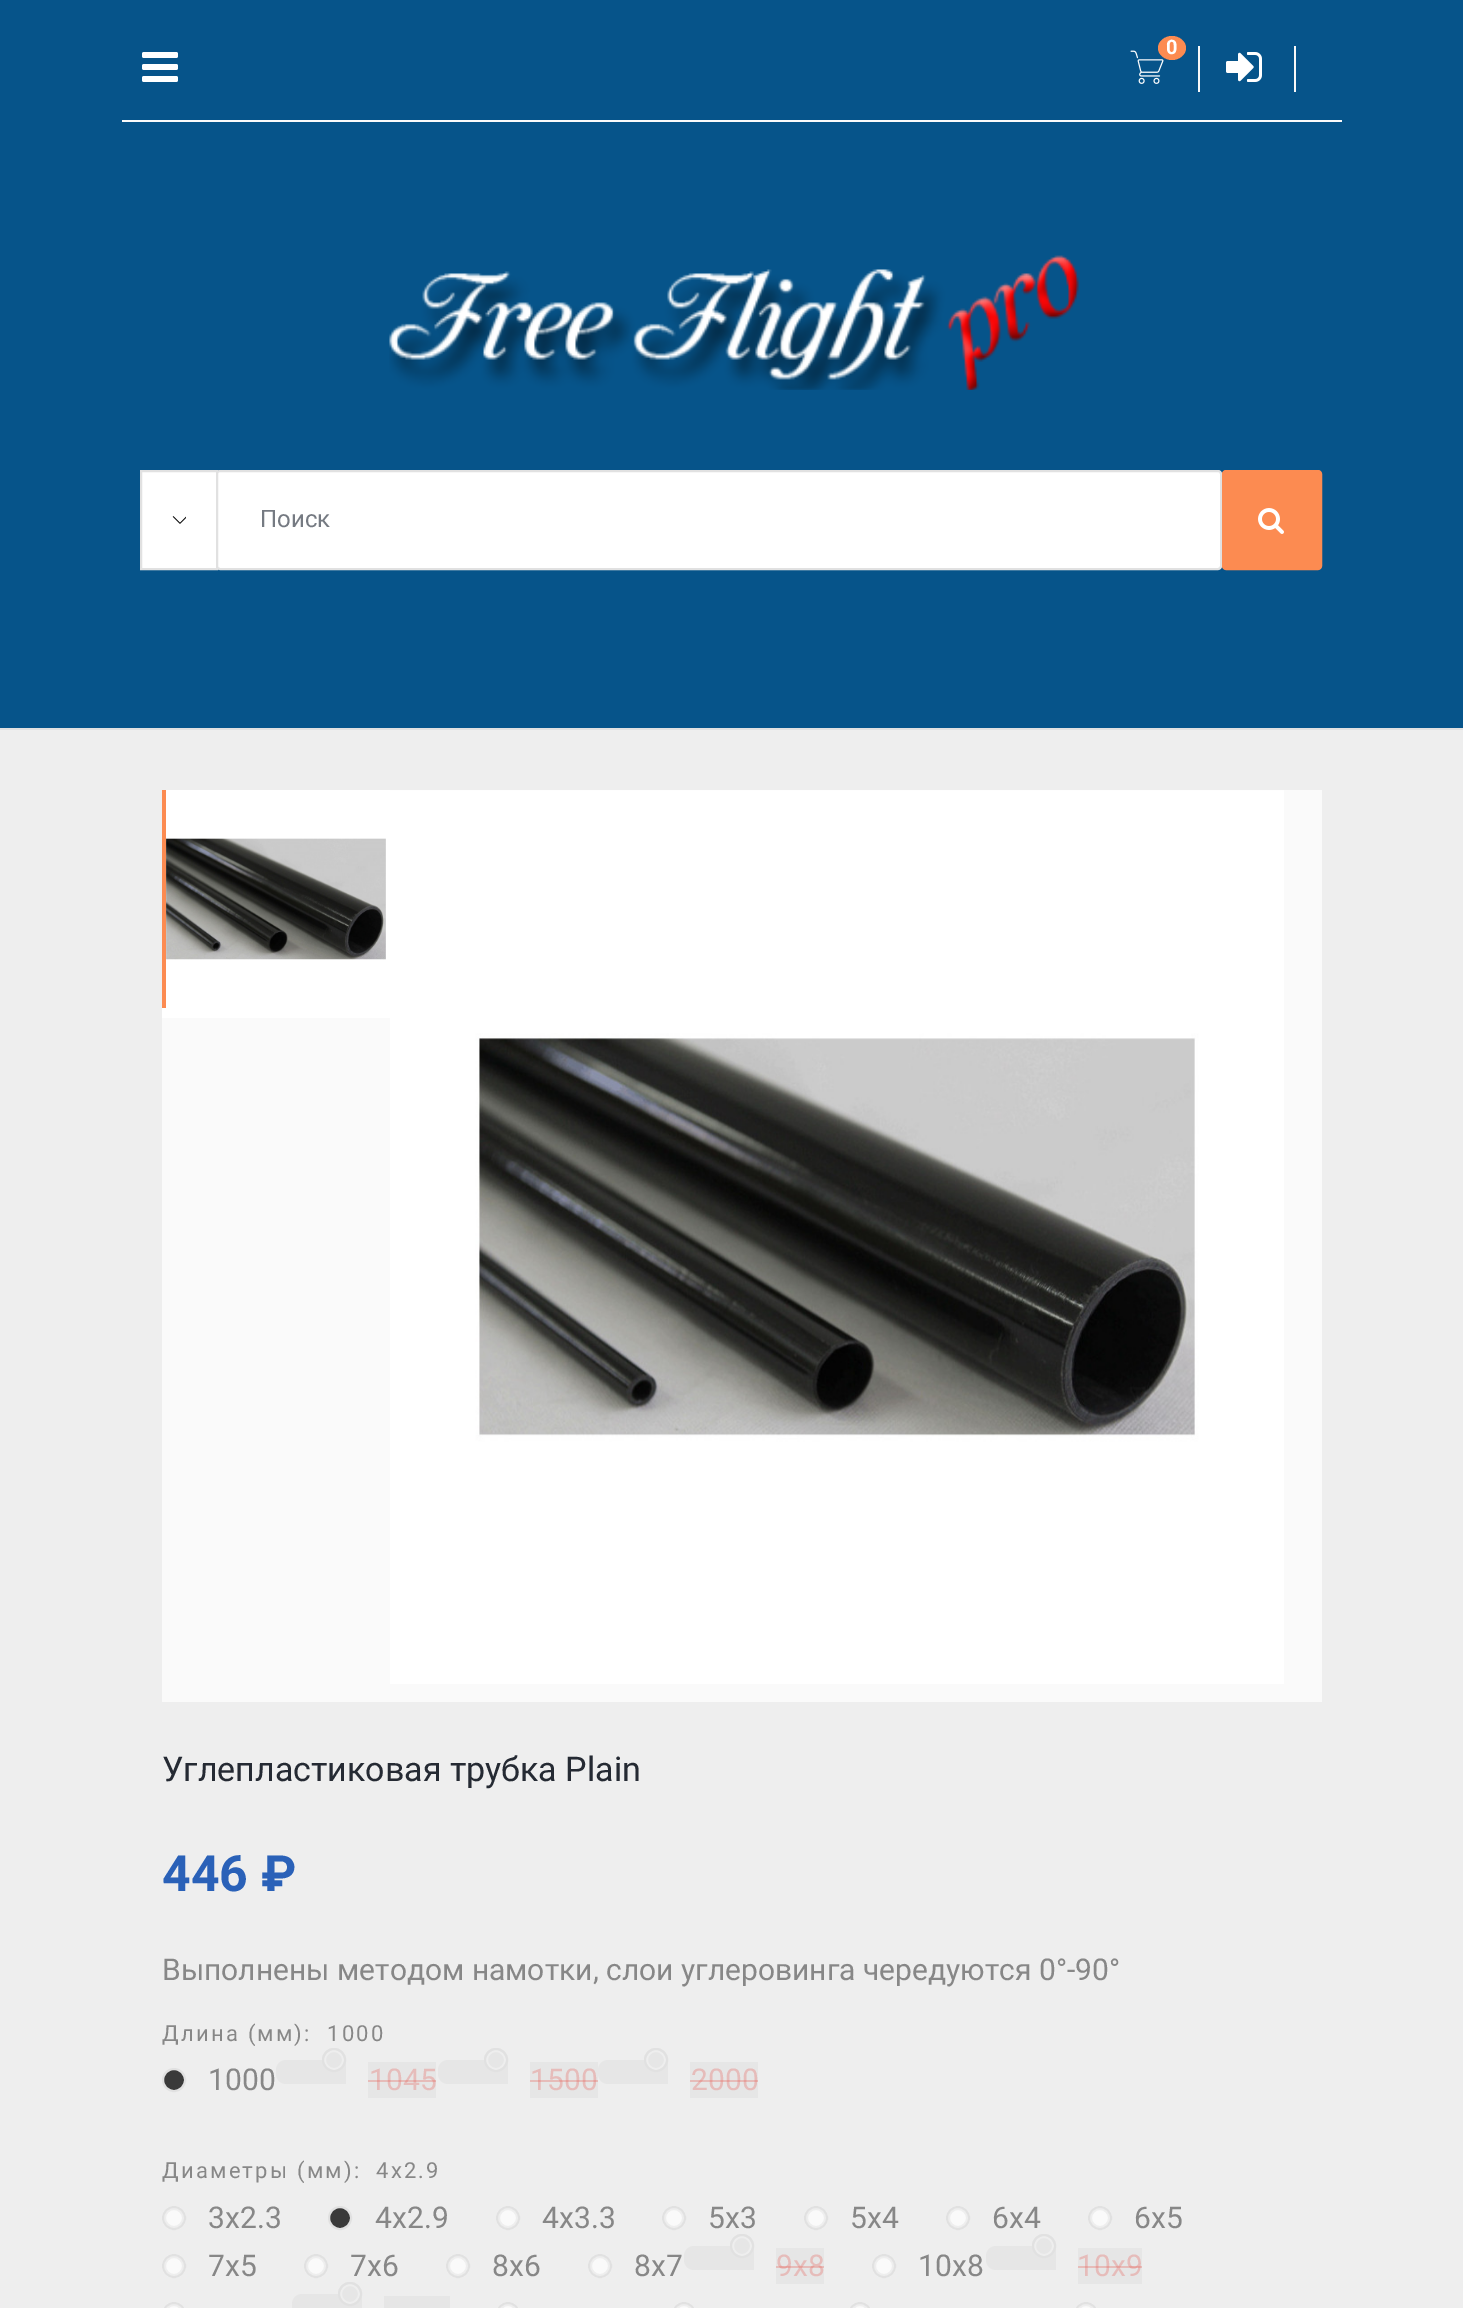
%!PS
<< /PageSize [1463 2308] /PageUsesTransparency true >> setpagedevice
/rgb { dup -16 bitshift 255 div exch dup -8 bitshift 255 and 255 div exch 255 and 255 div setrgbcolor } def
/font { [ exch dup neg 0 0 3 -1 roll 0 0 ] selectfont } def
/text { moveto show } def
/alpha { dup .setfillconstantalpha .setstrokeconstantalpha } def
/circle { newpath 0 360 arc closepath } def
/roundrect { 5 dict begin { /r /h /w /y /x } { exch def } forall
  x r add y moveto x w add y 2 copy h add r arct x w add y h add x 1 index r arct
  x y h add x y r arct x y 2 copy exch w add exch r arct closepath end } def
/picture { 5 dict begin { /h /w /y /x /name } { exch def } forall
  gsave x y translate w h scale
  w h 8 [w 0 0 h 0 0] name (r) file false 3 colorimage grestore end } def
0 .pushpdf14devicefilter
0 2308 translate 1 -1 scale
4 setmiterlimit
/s1 { /Roboto-Regular 24 font 16#757A82 rgb } def
/s2 { /Roboto-Regular 34 font 16#252A33 rgb } def
/s3 { /Roboto-Bold 50 font 16#2A61B8 rgb } def
/s4 { /Roboto-Regular 30 font 16#878787 rgb } def
/s5 { /Roboto-Regular 30 font 16#E6BCBA rgb } def
16#06548A rgb
0 0 1463 2308 rectfill
16#E1E1E1 rgb
0 728 1463 2 rectfill
16#FAFAFA rgb
122 120 1220 2 rectfill
16#F8F8F8 rgb
1198 46 2 46 rectfill
(pic1.raw) 1130 50 34 34 picture
16#FC8B51 rgb
1172 36 moveto 1179.5 36 1186 41.5 1186 48 curveto 1186 54.5 1179.5 60 1172 60 curveto 1164.5 60 1158 54.5 1158 48 curveto 1158 41.5 1164.5 36 1172 36 curveto closepath fill
/Roboto-Bold 20 font
16#FFFFFF rgb
1166 54 moveto 1 0 (0) ashow
16#F8F8F8 rgb
1294 46 2 46 rectfill
(pic2.raw) 1226 52 36 30 picture
(pic3.raw) 142 52 36 30 picture
(pic4.raw) 389 255 690 135 picture
16#FFFFFF rgb
142 472 74 96 rectfill
(pic5.raw) 172 516 14 8 picture
16#E1E1E1 rgb
2 setlinewidth
141 471 76 98 rectstroke
16#FFFFFF rgb
217 471 1004 98 3 roundrect gsave fill grestore
16#E1E1E1 rgb
stroke
s1
(Поиск) 260 527 text
16#FC8B51 rgb
1223 471 98 98 3 roundrect gsave fill grestore
stroke
(pic6.raw) 1258 508 26 26 picture
16#EEEEEE rgb
0 730 1463 1578 rectfill
16#FAFAFA rgb
162 790 1160 912 rectfill
16#FFFFFF rgb
162 790 228 228 rectfill
16#FC8B51 rgb
162 790 4 218 rectfill
(pic7.raw) 166 838 220 122 picture
(pic8.raw) 390 790 894 894 picture
s2
(Углепластиковая трубка Plain) 162 1781 text
s3
(446 ₽) 162 1891 text
s4
(Выполнены методом намотки, слои углеровинга чередуются 0°-90°) 162 1980 text
/Roboto-Regular 22 font
162 2041 moveto 2.25 0 (Длина \(мм\):) ashow
327 2041 moveto 2.25 0 (1000) ashow
16#3A3A3A rgb
174 2080 11 circle gsave fill grestore
16#E1E1E1 rgb
stroke
s4
(1000) 208 2090 text
16#E6E6E6 rgb
286 2060 moveto 346 2060 lineto 346 2084 lineto 286 2084 lineto 280.5 2084 276 2079.5 276 2074 curveto 276 2070 lineto 276 2064.5 280.5 2060 286 2060 curveto closepath fill
368 2062 68 36 rectfill
334 2060 12 circle fill
16#EEEEEE rgb
334 2060 9 circle stroke
16#E1E1E1 rgb
334 2060 11 circle stroke
s5
(1045) 369 2090 text
0.32 alpha
16#E7645B rgb
368 2080 68 2 rectfill
1 alpha
16#E6E6E6 rgb
448 2060 moveto 508 2060 lineto 508 2084 lineto 448 2084 lineto 442.5 2084 438 2079.5 438 2074 curveto 438 2070 lineto 438 2064.5 442.5 2060 448 2060 curveto closepath fill
530 2062 68 36 rectfill
496 2060 12 circle fill
16#EEEEEE rgb
496 2060 9 circle stroke
16#E1E1E1 rgb
496 2060 11 circle stroke
s5
(1500) 530 2090 text
0.32 alpha
16#E7645B rgb
530 2080 68 2 rectfill
1 alpha
16#E6E6E6 rgb
608 2060 moveto 668 2060 lineto 668 2084 lineto 608 2084 lineto 602.5 2084 598 2079.5 598 2074 curveto 598 2070 lineto 598 2064.5 602.5 2060 608 2060 curveto closepath fill
690 2062 68 36 rectfill
656 2060 12 circle fill
16#EEEEEE rgb
656 2060 9 circle stroke
16#E1E1E1 rgb
656 2060 11 circle stroke
s5
(2000) 691 2090 text
0.32 alpha
16#E7645B rgb
690 2080 68 2 rectfill
/Roboto-Regular 22 font
1 alpha
16#878787 rgb
162 2178 moveto 2.25 0 (Диаметры \(мм\):) ashow
376 2178 moveto 2.25 0 (4x2.9) ashow
16#FAFAFA rgb
174 2218 12 circle fill
16#EEEEEE rgb
174 2218 9 circle stroke
16#E1E1E1 rgb
174 2218 11 circle stroke
s4
(3x2.3) 208 2228 text
16#3A3A3A rgb
340 2218 11 circle gsave fill grestore
16#E1E1E1 rgb
stroke
s4
(4x2.9) 375 2228 text
16#FAFAFA rgb
508 2218 12 circle fill
16#EEEEEE rgb
508 2218 9 circle stroke
16#E1E1E1 rgb
508 2218 11 circle stroke
s4
(4x3.3) 542 2228 text
16#FAFAFA rgb
674 2218 12 circle fill
16#EEEEEE rgb
674 2218 9 circle stroke
16#E1E1E1 rgb
674 2218 11 circle stroke
s4
(5x3) 708 2228 text
16#FAFAFA rgb
816 2218 12 circle fill
16#EEEEEE rgb
816 2218 9 circle stroke
16#E1E1E1 rgb
816 2218 11 circle stroke
s4
(5x4) 850 2228 text
16#FAFAFA rgb
958 2218 12 circle fill
16#EEEEEE rgb
958 2218 9 circle stroke
16#E1E1E1 rgb
958 2218 11 circle stroke
s4
(6x4) 992 2228 text
16#FAFAFA rgb
1100 2218 12 circle fill
16#EEEEEE rgb
1100 2218 9 circle stroke
16#E1E1E1 rgb
1100 2218 11 circle stroke
s4
(6x5) 1134 2228 text
16#FAFAFA rgb
174 2266 12 circle fill
16#EEEEEE rgb
174 2266 9 circle stroke
16#E1E1E1 rgb
174 2266 11 circle stroke
s4
(7x5) 208 2276 text
16#FAFAFA rgb
316 2266 12 circle fill
16#EEEEEE rgb
316 2266 9 circle stroke
16#E1E1E1 rgb
316 2266 11 circle stroke
s4
(7x6) 350 2276 text
16#FAFAFA rgb
458 2266 12 circle fill
16#EEEEEE rgb
458 2266 9 circle stroke
16#E1E1E1 rgb
458 2266 11 circle stroke
s4
(8x6) 492 2276 text
16#FAFAFA rgb
600 2266 12 circle fill
16#EEEEEE rgb
600 2266 9 circle stroke
16#E1E1E1 rgb
600 2266 11 circle stroke
s4
(8x7) 634 2276 text
16#E6E6E6 rgb
694 2246 moveto 754 2246 lineto 754 2270 lineto 694 2270 lineto 688.5 2270 684 2265.5 684 2260 curveto 684 2256 lineto 684 2250.5 688.5 2246 694 2246 curveto closepath fill
776 2248 48 36 rectfill
742 2246 12 circle fill
16#EEEEEE rgb
742 2246 9 circle stroke
16#E1E1E1 rgb
742 2246 11 circle stroke
s5
(9x8) 776 2276 text
0.32 alpha
16#E7645B rgb
776 2266 48 2 rectfill
1 alpha
16#FAFAFA rgb
884 2266 12 circle fill
16#EEEEEE rgb
884 2266 9 circle stroke
16#E1E1E1 rgb
884 2266 11 circle stroke
s4
(10x8) 918 2276 text
16#E6E6E6 rgb
996 2246 moveto 1056 2246 lineto 1056 2270 lineto 996 2270 lineto 990.5 2270 986 2265.5 986 2260 curveto 986 2256 lineto 986 2250.5 990.5 2246 996 2246 curveto closepath fill
1078 2248 64 36 rectfill
1044 2246 12 circle fill
16#EEEEEE rgb
1044 2246 9 circle stroke
16#E1E1E1 rgb
1044 2246 11 circle stroke
s5
(10x9) 1077 2276 text
0.32 alpha
16#E7645B rgb
1078 2266 64 2 rectfill
1 alpha
16#FAFAFA rgb
162 2302 24 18 12 roundrect fill
16#EEEEEE rgb
165 2305 18 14 9 roundrect stroke
16#E1E1E1 rgb
163 2303 22 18 11 roundrect stroke
16#E6E6E6 rgb
302 2294 moveto 362 2294 lineto 362 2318 lineto 302 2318 lineto 296.5 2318 292 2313.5 292 2308 curveto 292 2304 lineto 292 2298.5 296.5 2294 302 2294 curveto closepath fill
384 2296 66 12 rectfill
350 2294 12 circle fill
16#EEEEEE rgb
350 2294 9 circle stroke
16#E1E1E1 rgb
350 2294 11 circle stroke
16#FAFAFA rgb
496 2302 24 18 12 roundrect fill
16#EEEEEE rgb
499 2305 18 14 9 roundrect stroke
16#E1E1E1 rgb
497 2303 22 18 11 roundrect stroke
16#FAFAFA rgb
672 2302 24 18 12 roundrect fill
16#EEEEEE rgb
675 2305 18 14 9 roundrect stroke
16#E1E1E1 rgb
673 2303 22 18 11 roundrect stroke
16#FAFAFA rgb
848 2302 24 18 12 roundrect fill
16#EEEEEE rgb
851 2305 18 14 9 roundrect stroke
16#E1E1E1 rgb
849 2303 22 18 11 roundrect stroke
16#FAFAFA rgb
1074 2302 24 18 12 roundrect fill
16#EEEEEE rgb
1077 2305 18 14 9 roundrect stroke
16#E1E1E1 rgb
1075 2303 22 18 11 roundrect stroke
.poppdf14devicefilter showpage
